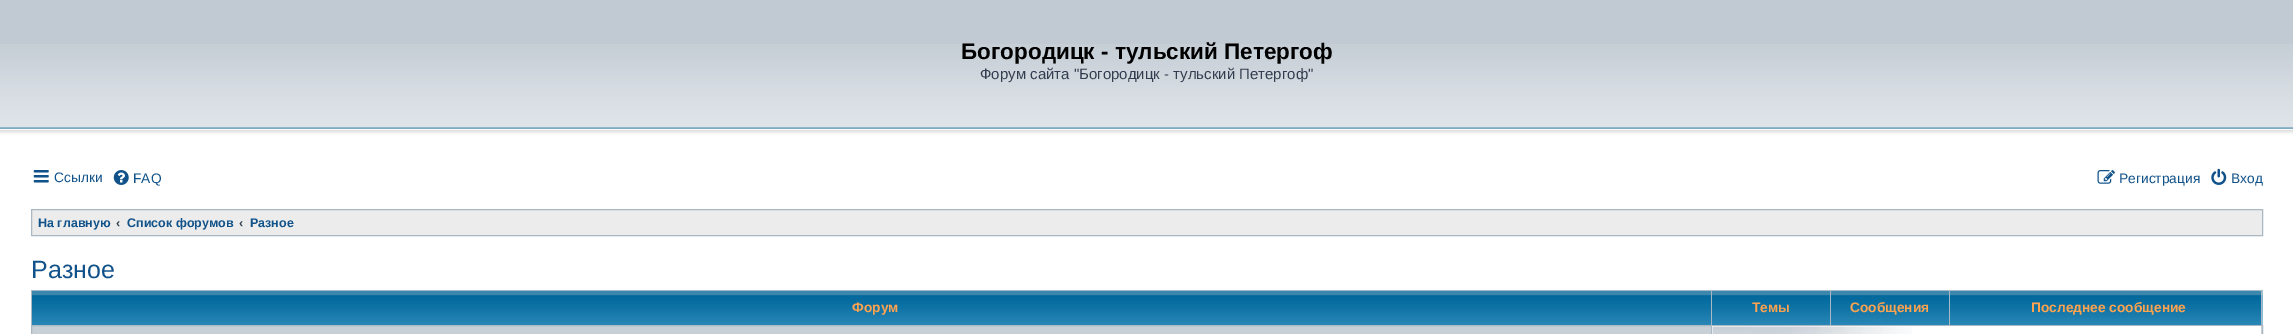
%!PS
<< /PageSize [2293 334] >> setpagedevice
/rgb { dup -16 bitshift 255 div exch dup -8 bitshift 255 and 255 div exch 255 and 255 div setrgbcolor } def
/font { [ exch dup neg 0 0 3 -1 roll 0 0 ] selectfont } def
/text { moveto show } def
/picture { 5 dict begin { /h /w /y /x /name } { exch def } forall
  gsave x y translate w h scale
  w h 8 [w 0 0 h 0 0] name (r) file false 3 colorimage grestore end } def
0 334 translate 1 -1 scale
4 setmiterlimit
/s1 { /LiberationSans-Bold 22.5 font 16#000000 rgb } def
/s2 { /LiberationSans-Regular 15 font 16#323D4F rgb } def
/s3 { /LiberationSans-Regular 13.75 font 16#105289 rgb } def
/s4 { /LiberationSans-Bold 12.5 font 16#105289 rgb } def
/s5 { /LiberationSans-Bold 12.5 font 16#323D4F rgb } def
/s6 { /LiberationSans-Regular 25 font 16#105289 rgb } def
/s7 { /LiberationSans-Bold 13.75 font 16#FFA34F rgb } def
16#FFFFFF rgb
0 0 2293 334 rectfill
16#C1CAD2 rgb
0 0 2293 44 rectfill
(pic1.raw) 0 44 2293 97 picture
s1
(Богородицк - тульский Петергоф) 961 59 text
s2
(Форум сайта "Богородицк - тульский Петергоф") 980 79 text
(pic2.raw) 33 170 16 13 picture
s3
(Ссылки) 54 182 text
(pic3.raw) 113 170 16 15 picture
(FAQ) 133 183 text
(pic4.raw) 2097 170 18 14 picture
(Регистрация) 2119 183 text
(pic5.raw) 2211 168 16 17 picture
(Вход) 2231 183 text
16#ECECEC rgb
31.5 209.5 moveto 2262.5 209.5 lineto 2262.5 235.5 lineto 31.5 235.5 lineto closepath gsave fill grestore
16#A9B8C2 rgb
stroke
s4
(На главную) 38 227 text
s5
(‹) 116 227 text
s4
(Список форумов) 127 227 text
s5
(‹) 239 227 text
s4
(Разное) 250 227 text
s6
(Разное) 31 278 text
(pic6.raw) 32 291 2231 34 picture
16#A9B8C2 rgb
31 290 2232 1 rectfill
2261 290 1 35 rectfill
31 290 1 35 rectfill
s7
(Форум) 852 312 text
16#A9B8C2 rgb
1711 291 1 34 rectfill
s7
(Темы) 1752 312 text
16#A9B8C2 rgb
1830 291 1 34 rectfill
s7
(Сообщения) 1850 312 text
16#A9B8C2 rgb
1949 291 1 34 rectfill
s7
(Последнее сообщение) 2031 312 text
16#C7D0D7 rgb
31.5 325.5 moveto 2262.5 325.5 lineto 2262.5 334.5 lineto 31.5 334.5 lineto closepath gsave fill grestore
16#A9B8C2 rgb
stroke
16#FFFFFF rgb
1711 326 550 8 rectfill
(pic7.raw) 1712 326 200 8 picture
16#A9B8C2 rgb
1711 326 1 8 rectfill
showpage
